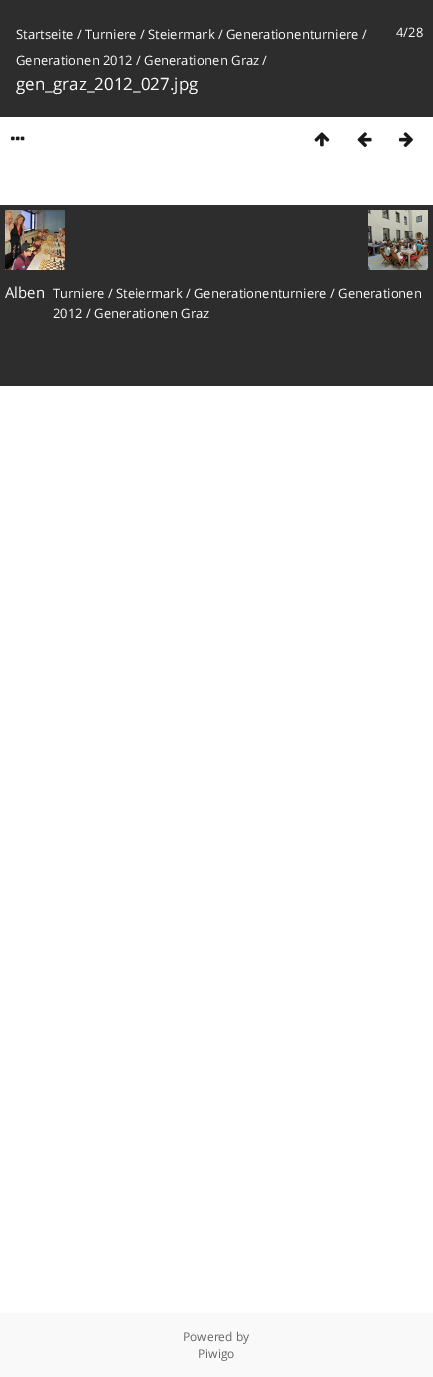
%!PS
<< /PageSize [433 1377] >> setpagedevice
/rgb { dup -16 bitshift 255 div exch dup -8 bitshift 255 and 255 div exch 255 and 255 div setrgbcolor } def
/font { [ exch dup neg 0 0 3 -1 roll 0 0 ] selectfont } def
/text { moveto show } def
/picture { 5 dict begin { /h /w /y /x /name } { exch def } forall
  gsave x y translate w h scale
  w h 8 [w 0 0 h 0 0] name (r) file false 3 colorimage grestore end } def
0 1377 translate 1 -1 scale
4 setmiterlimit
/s1 { /OpenSans-Regular 13 font 16#FFFFFF rgb } def
/s2 { /OpenSans-Regular 17 font 16#FFFFFF rgb } def
/s3 { /OpenSans-Regular 15 font 16#FFFFFF rgb } def
/s4 { /OpenSans-Regular 12 font 16#666666 rgb } def
16#FFFFFF rgb
0 0 433 1377 rectfill
16#2D2D2D rgb
0 0 433 117 rectfill
s1
(Startseite / Turniere / Steiermark / Generationenturniere /) 16 39 text
(Generationen 2012 / Generationen Graz /) 16 65 text
s2
(gen_graz_2012_027.jpg) 16 90 text
s1
(4/28) 396 37 text
(pic1.raw) 11 136 14 5 picture
(pic2.raw) 314 132 16 15 picture
(pic3.raw) 357 132 15 15 picture
(pic4.raw) 399 132 14 15 picture
16#2D2D2D rgb
0 205 433 181 rectfill
(pic5.raw) 5 210 60 60 picture
(pic6.raw) 368 210 60 60 picture
s3
(Alben) 5 298 text
s1
(Turniere / Steiermark / Generationenturniere / Generationen) 53 298 text
(2012 / Generationen Graz) 53 318 text
16#F9F9F9 rgb
0 1313 433 64 rectfill
s4
(Powered by) 183 1341 text
(Piwigo) 198 1358 text
showpage
